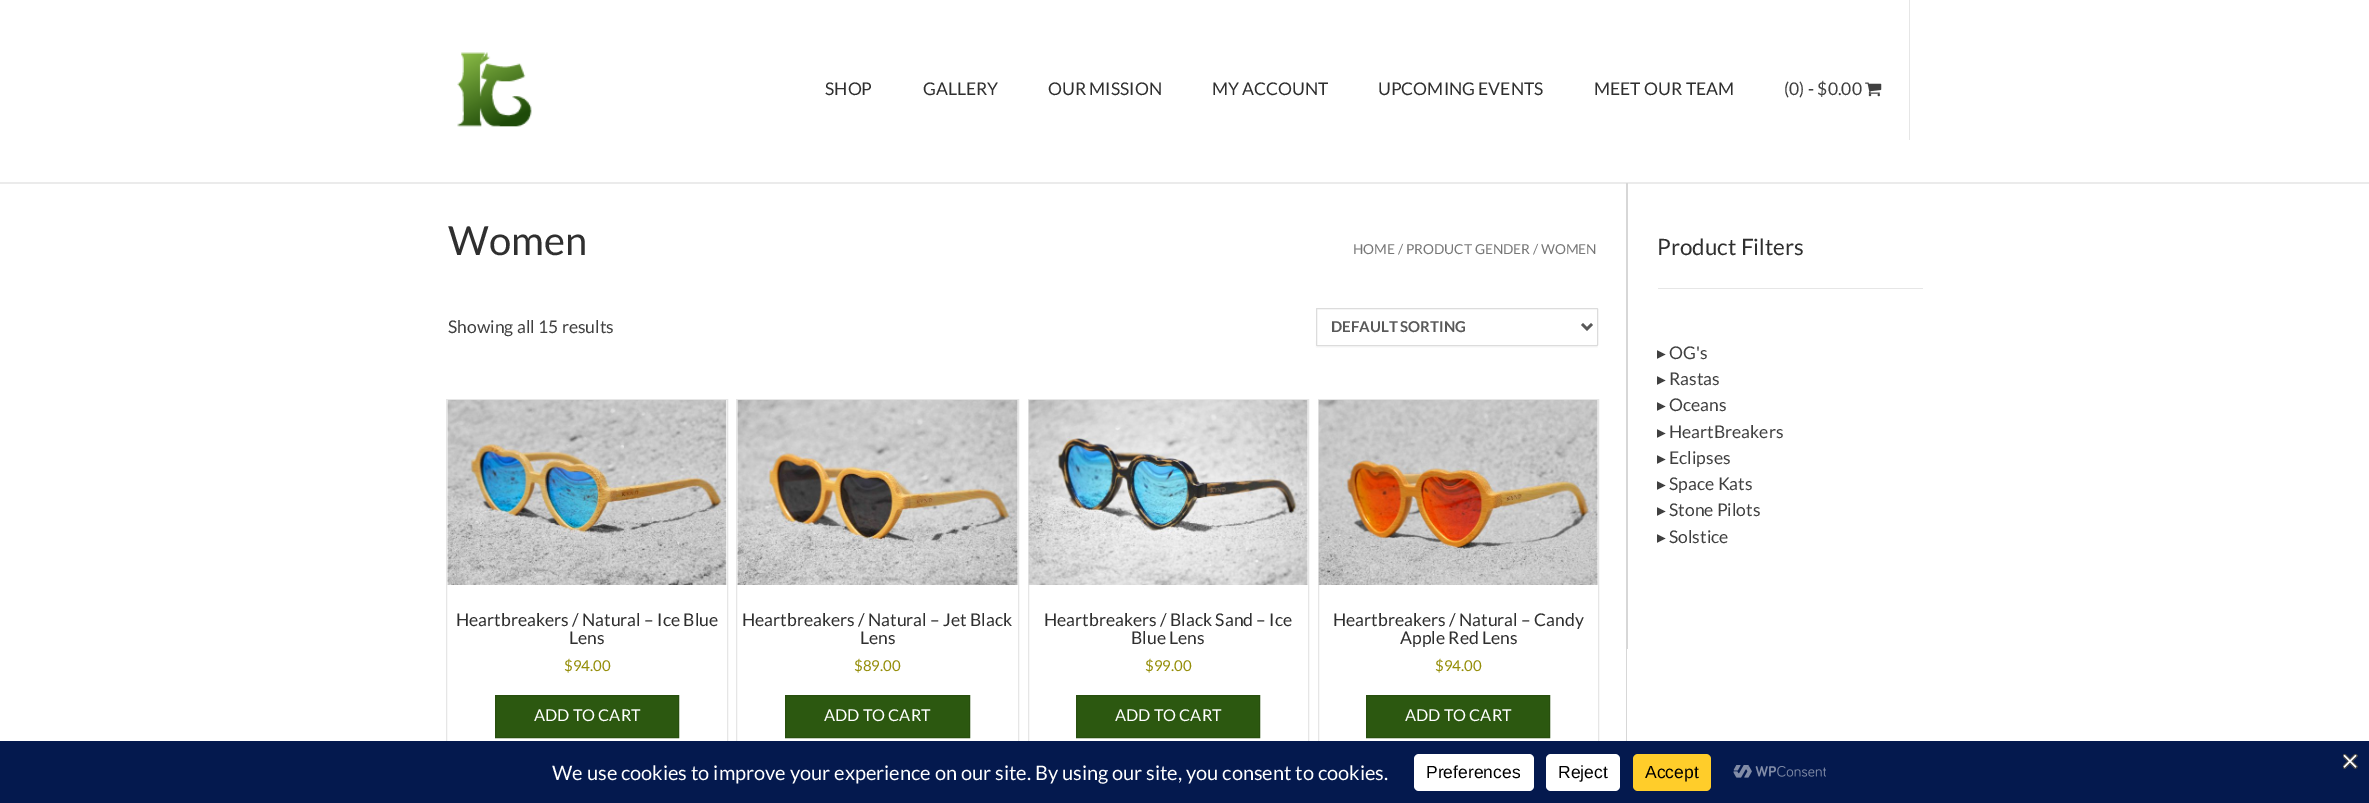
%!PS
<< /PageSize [2369 803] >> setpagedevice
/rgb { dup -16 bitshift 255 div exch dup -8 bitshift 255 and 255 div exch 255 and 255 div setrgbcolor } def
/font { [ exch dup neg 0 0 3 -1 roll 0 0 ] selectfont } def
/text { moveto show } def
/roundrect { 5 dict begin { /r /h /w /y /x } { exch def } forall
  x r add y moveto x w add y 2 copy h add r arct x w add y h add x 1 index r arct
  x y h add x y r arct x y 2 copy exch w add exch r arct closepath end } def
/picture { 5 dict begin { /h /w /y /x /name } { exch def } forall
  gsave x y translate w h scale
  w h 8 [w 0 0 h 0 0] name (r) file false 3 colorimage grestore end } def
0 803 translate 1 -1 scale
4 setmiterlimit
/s1 { /Lato-Regular 17.5 font 16#2F2F2F rgb } def
/s2 { /Lato-Regular 17.5 font 16#404040 rgb } def
/s3 { /Lato-Regular 40 font 16#2F2F2F rgb } def
/s4 { /Lato-Regular 13.75 font 16#767676 rgb } def
/s5 { /Lato-Bold 15 font 16#595959 rgb } def
/s6 { /Lato-Regular 15 font 16#958E09 rgb } def
/s7 { /Lato-Regular 16.25 font 16#FFFFFF rgb } def
/s8 { /Lato-Regular 22.5 font 16#2F2F2F rgb } def
/s9 { /DejaVuSans-Regular 17.5 font 16#404040 rgb } def
/s10 { /Lato-Regular 20 font 16#FFFFFF rgb } def
/s11 { /LiberationSans-Regular 17.5 font 16#000000 rgb } def
16#FFFFFF rgb
0 0 2369 803 rectfill
16#EBEBEB rgb
0 182 2369 2 rectfill
(pic1.raw) 457 52 75 75 picture
s1
(SHOP) 825 95 text
(GALLERY) 923 95 text
(OUR MISSION) 1048 95 text
(MY ACCOUNT) 1212 95 text
(UPCOMING EVENTS) 1378 95 text
(MEET OUR TEAM) 1594 95 text
s2
(\(0\) - $0.00) 1784 95 text
(pic2.raw) 1865 82 17 15 picture
16#E6E6E6 rgb
1909 0 1 140 rectfill
16#D7D7D7 rgb
1626 649 1 92 rectfill
s3
(Women) 448 255 text
s4
(HOME) 1353 254 text
(/ PRODUCT GENDER / WOMEN) 1398 254 text
s2
(Showing all 15 results) 448 333 text
16#FAFAFA rgb
1316 309 moveto 1316 341 lineto 1316 343 1315 348 1317 348 curveto 1597 348 lineto 1598 347 lineto 1598 343 1598 310 1598 309 curveto 1598 345 lineto 1598 346 1597 346 1596 346 curveto 1318 346 lineto 1317 346 1316 346 1316 345 curveto closepath fill
16#DCDCDC rgb
1316.5 308.5 281 37 0.5 roundrect stroke
16#595959 rgb
2.5 setlinewidth
1582 324 moveto 1587 329 lineto 1592 324 lineto stroke
s5
(DEFAULT SORTING) 1331 332 text
16#E6E6E6 rgb
1 setlinewidth
446.5 399.5 281 364 rectstroke
(pic3.raw) 447 400 280 185 picture
s1
(Heartbreakers / Natural – Ice Blue) 456 626 text
(Lens) 569 644 text
s6
($94.00) 564 671 text
16#2C5810 rgb
495.5 695.5 moveto 678.5 695.5 lineto 678.5 737.5 lineto 495.5 737.5 lineto closepath gsave fill grestore
16#284F0E rgb
stroke
s7
(ADD TO CART) 534 721 text
16#E6E6E6 rgb
736.5 399.5 282 364 rectstroke
(pic4.raw) 737 400 281 185 picture
s1
(Heartbreakers / Natural – Jet Black) 742 626 text
(Lens) 860 644 text
s6
($89.00) 854 671 text
16#2C5810 rgb
785.5 695.5 moveto 969.5 695.5 lineto 969.5 737.5 lineto 785.5 737.5 lineto closepath gsave fill grestore
16#284F0E rgb
stroke
s7
(ADD TO CART) 824 721 text
16#E6E6E6 rgb
1028.5 399.5 280 364 rectstroke
(pic5.raw) 1028 400 280 185 picture
s1
(Heartbreakers / Black Sand – Ice) 1044 626 text
(Blue Lens) 1131 644 text
s6
($99.00) 1145 671 text
16#2C5810 rgb
1076.5 695.5 moveto 1259.5 695.5 lineto 1259.5 737.5 lineto 1076.5 737.5 lineto closepath gsave fill grestore
16#284F0E rgb
stroke
s7
(ADD TO CART) 1115 721 text
16#E6E6E6 rgb
1318.5 399.5 280 364 rectstroke
(pic6.raw) 1318 400 280 185 picture
s1
(Heartbreakers / Natural – Candy) 1333 626 text
(Apple Red Lens) 1400 644 text
s6
($94.00) 1435 671 text
16#2C5810 rgb
1366.5 695.5 moveto 1549.5 695.5 lineto 1549.5 737.5 lineto 1366.5 737.5 lineto closepath gsave fill grestore
16#284F0E rgb
stroke
s7
(ADD TO CART) 1405 721 text
16#D7D7D7 rgb
1626 183 moveto 1626 649 lineto 1921 649 lineto 1628 649 lineto 1628 183 lineto closepath fill
16#E6E6E6 rgb
1658 288 265 1 rectfill
s8
(Product Filters) 1657 255 text
s9
(▸) 1657 359 text
s2
(OG's) 1669 359 text
s9
(▸) 1657 385 text
s2
(Rastas) 1669 385 text
s9
(▸) 1657 411 text
s2
(Oceans) 1669 411 text
s9
(▸) 1657 438 text
s2
(HeartBreakers) 1669 438 text
s9
(▸) 1657 464 text
s2
(Eclipses) 1669 464 text
s9
(▸) 1657 490 text
s2
(Space Kats) 1669 490 text
s9
(▸) 1657 516 text
s2
(Stone Pilots) 1669 516 text
s9
(▸) 1657 543 text
s2
(Solstice) 1669 543 text
16#04194E rgb
0 741 2369 62 rectfill
(pic7.raw) 2343 754 15 15 picture
s10
(We use cookies to improve your experience on our site. By using our site, you consent to cookies.) 552 780 text
1414 754 120 37 5 roundrect fill
s11
(Preferences) 1426 778 text
16#FFFFFF rgb
1546 754 74 37 5 roundrect fill
s11
(Reject) 1558 778 text
16#FFCD2A rgb
1633 754 78 37 5 roundrect fill
s11
(Accept) 1645 778 text
(pic8.raw) 1733 765 93 13 picture
showpage
